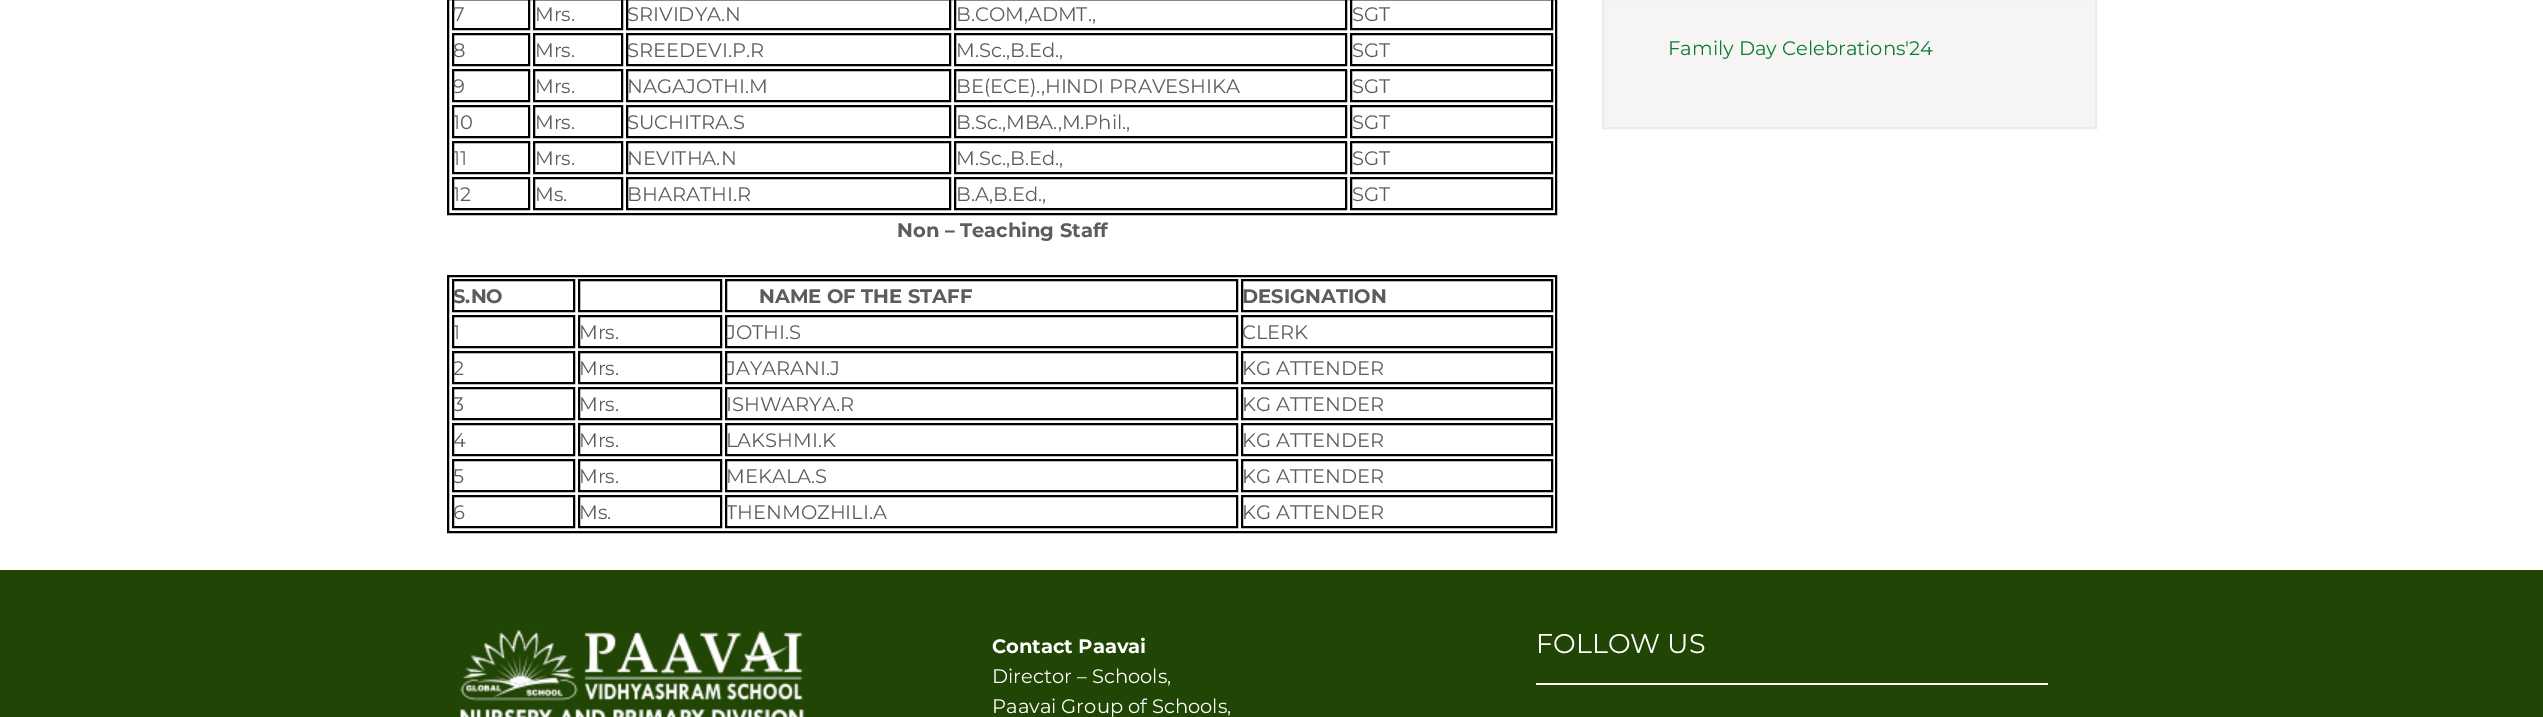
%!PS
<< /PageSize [2543 717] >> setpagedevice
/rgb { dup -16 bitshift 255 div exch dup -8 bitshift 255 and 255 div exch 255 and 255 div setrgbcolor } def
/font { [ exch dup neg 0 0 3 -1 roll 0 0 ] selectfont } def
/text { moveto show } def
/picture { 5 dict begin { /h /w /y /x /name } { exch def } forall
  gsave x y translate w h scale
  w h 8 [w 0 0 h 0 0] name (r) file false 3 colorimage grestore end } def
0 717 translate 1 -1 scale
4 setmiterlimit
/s1 { /Montserrat-Regular 19.5 font 16#5C5C5C rgb } def
/s2 { /Montserrat-Bold 19.5 font 16#5C5C5C rgb } def
/s3 { /Montserrat-Regular 19.5 font 16#0A7E30 rgb } def
/s4 { /Montserrat-Bold 19.5 font 16#FFFFFF rgb } def
/s5 { /Montserrat-Regular 19.5 font 16#FFFFFF rgb } def
/s6 { /Montserrat-Regular 27 font 16#FFFFFF rgb } def
16#FFFFFF rgb
0 0 2543 717 rectfill
16#000000 rgb
2 setlinewidth
448 -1 1108 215 rectstroke
453 -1 76 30 rectstroke
s1
(7) 453 21 text
16#000000 rgb
534 -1 88 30 rectstroke
s1
(Mrs.) 535 21 text
16#000000 rgb
627 -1 323 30 rectstroke
s1
(SRIVIDYA.N) 627 21 text
16#000000 rgb
955 -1 391 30 rectstroke
s1
(B.COM,ADMT.,) 956 21 text
16#000000 rgb
1351 -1 201 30 rectstroke
s1
(SGT) 1352 21 text
16#000000 rgb
453 34 76 31 rectstroke
s1
(8) 453 57 text
16#000000 rgb
534 34 88 31 rectstroke
s1
(Mrs.) 535 57 text
16#000000 rgb
627 34 323 31 rectstroke
s1
(SREEDEVI.P.R) 627 57 text
16#000000 rgb
955 34 391 31 rectstroke
s1
(M.Sc.,B.Ed.,) 956 57 text
16#000000 rgb
1351 34 201 31 rectstroke
s1
(SGT) 1352 57 text
16#000000 rgb
453 70 76 31 rectstroke
s1
(9) 453 93 text
16#000000 rgb
534 70 88 31 rectstroke
s1
(Mrs.) 535 93 text
16#000000 rgb
627 70 323 31 rectstroke
s1
(NAGAJOTHI.M) 627 93 text
16#000000 rgb
955 70 391 31 rectstroke
s1
(BE\(ECE\).,HINDI PRAVESHIKA) 956 93 text
16#000000 rgb
1351 70 201 31 rectstroke
s1
(SGT) 1352 93 text
16#000000 rgb
453 106 76 31 rectstroke
s1
(10) 453 129 text
16#000000 rgb
534 106 88 31 rectstroke
s1
(Mrs.) 535 129 text
16#000000 rgb
627 106 323 31 rectstroke
s1
(SUCHITRA.S) 627 129 text
16#000000 rgb
955 106 391 31 rectstroke
s1
(B.Sc.,MBA.,M.Phil.,) 956 129 text
16#000000 rgb
1351 106 201 31 rectstroke
s1
(SGT) 1352 129 text
16#000000 rgb
453 142 76 31 rectstroke
s1
(11) 453 165 text
16#000000 rgb
534 142 88 31 rectstroke
s1
(Mrs.) 535 165 text
16#000000 rgb
627 142 323 31 rectstroke
s1
(NEVITHA.N) 627 165 text
16#000000 rgb
955 142 391 31 rectstroke
s1
(M.Sc.,B.Ed.,) 956 165 text
16#000000 rgb
1351 142 201 31 rectstroke
s1
(SGT) 1352 165 text
16#000000 rgb
453 178 76 31 rectstroke
s1
(12) 453 201 text
16#000000 rgb
534 178 88 31 rectstroke
s1
(Ms.) 535 201 text
16#000000 rgb
627 178 323 31 rectstroke
s1
(BHARATHI.R) 627 201 text
16#000000 rgb
955 178 391 31 rectstroke
s1
(B.A,B.Ed.,) 956 201 text
16#000000 rgb
1351 178 201 31 rectstroke
s1
(SGT) 1352 201 text
s2
(Non – Teaching Staff) 897 237 text
16#000000 rgb
448 276 1108 256 rectstroke
453 280 121 31 rectstroke
s2
(S.NO) 453 303 text
16#000000 rgb
579 280 142 31 rectstroke
726 280 511 31 rectstroke
s2
(NAME OF THE STAFF) 759 303 text
16#000000 rgb
1242 280 310 31 rectstroke
s2
(DESIGNATION) 1242 303 text
16#000000 rgb
453 316 121 31 rectstroke
s1
(1) 453 339 text
16#000000 rgb
579 316 142 31 rectstroke
s1
(Mrs.) 579 339 text
16#000000 rgb
726 316 511 31 rectstroke
s1
(JOTHI.S) 726 339 text
16#000000 rgb
1242 316 310 31 rectstroke
s1
(CLERK) 1242 339 text
16#000000 rgb
453 352 121 31 rectstroke
s1
(2) 453 375 text
16#000000 rgb
579 352 142 31 rectstroke
s1
(Mrs.) 579 375 text
16#000000 rgb
726 352 511 31 rectstroke
s1
(JAYARANI.J) 726 375 text
16#000000 rgb
1242 352 310 31 rectstroke
s1
(KG ATTENDER) 1242 375 text
16#000000 rgb
453 388 121 31 rectstroke
s1
(3) 453 411 text
16#000000 rgb
579 388 142 31 rectstroke
s1
(Mrs.) 579 411 text
16#000000 rgb
726 388 511 31 rectstroke
s1
(ISHWARYA.R) 726 411 text
16#000000 rgb
1242 388 310 31 rectstroke
s1
(KG ATTENDER) 1242 411 text
16#000000 rgb
453 424 121 31 rectstroke
s1
(4) 453 447 text
16#000000 rgb
579 424 142 31 rectstroke
s1
(Mrs.) 579 447 text
16#000000 rgb
726 424 511 31 rectstroke
s1
(LAKSHMI.K) 726 447 text
16#000000 rgb
1242 424 310 31 rectstroke
s1
(KG ATTENDER) 1242 447 text
16#000000 rgb
453 460 121 31 rectstroke
s1
(5) 453 483 text
16#000000 rgb
579 460 142 31 rectstroke
s1
(Mrs.) 579 483 text
16#000000 rgb
726 460 511 31 rectstroke
s1
(MEKALA.S) 726 483 text
16#000000 rgb
1242 460 310 31 rectstroke
s1
(KG ATTENDER) 1242 483 text
16#000000 rgb
453 496 121 31 rectstroke
s1
(6) 453 519 text
16#000000 rgb
579 496 142 31 rectstroke
s1
(Ms.) 579 519 text
16#000000 rgb
726 496 511 31 rectstroke
s1
(THENMOZHILI.A) 726 519 text
16#000000 rgb
1242 496 310 31 rectstroke
s1
(KG ATTENDER) 1242 519 text
16#F6F4F4 rgb
1603 -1 moveto 2096 -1 lineto 2096 128 lineto 1603 128 lineto closepath gsave fill grestore
16#EDECEC rgb
stroke
s3
(Family Day Celebrations'24) 1668 55 text
16#214504 rgb
0 570 2543 147 rectfill
(pic1.raw) 460 630 345 87 picture
s4
(Contact Paavai) 992 653 text
s5
(Director – Schools,) 992 683 text
(Paavai Group of Schools,) 992 713 text
1536 683 512 2 rectfill
s6
(FOLLOW US) 1536 653 text
showpage
